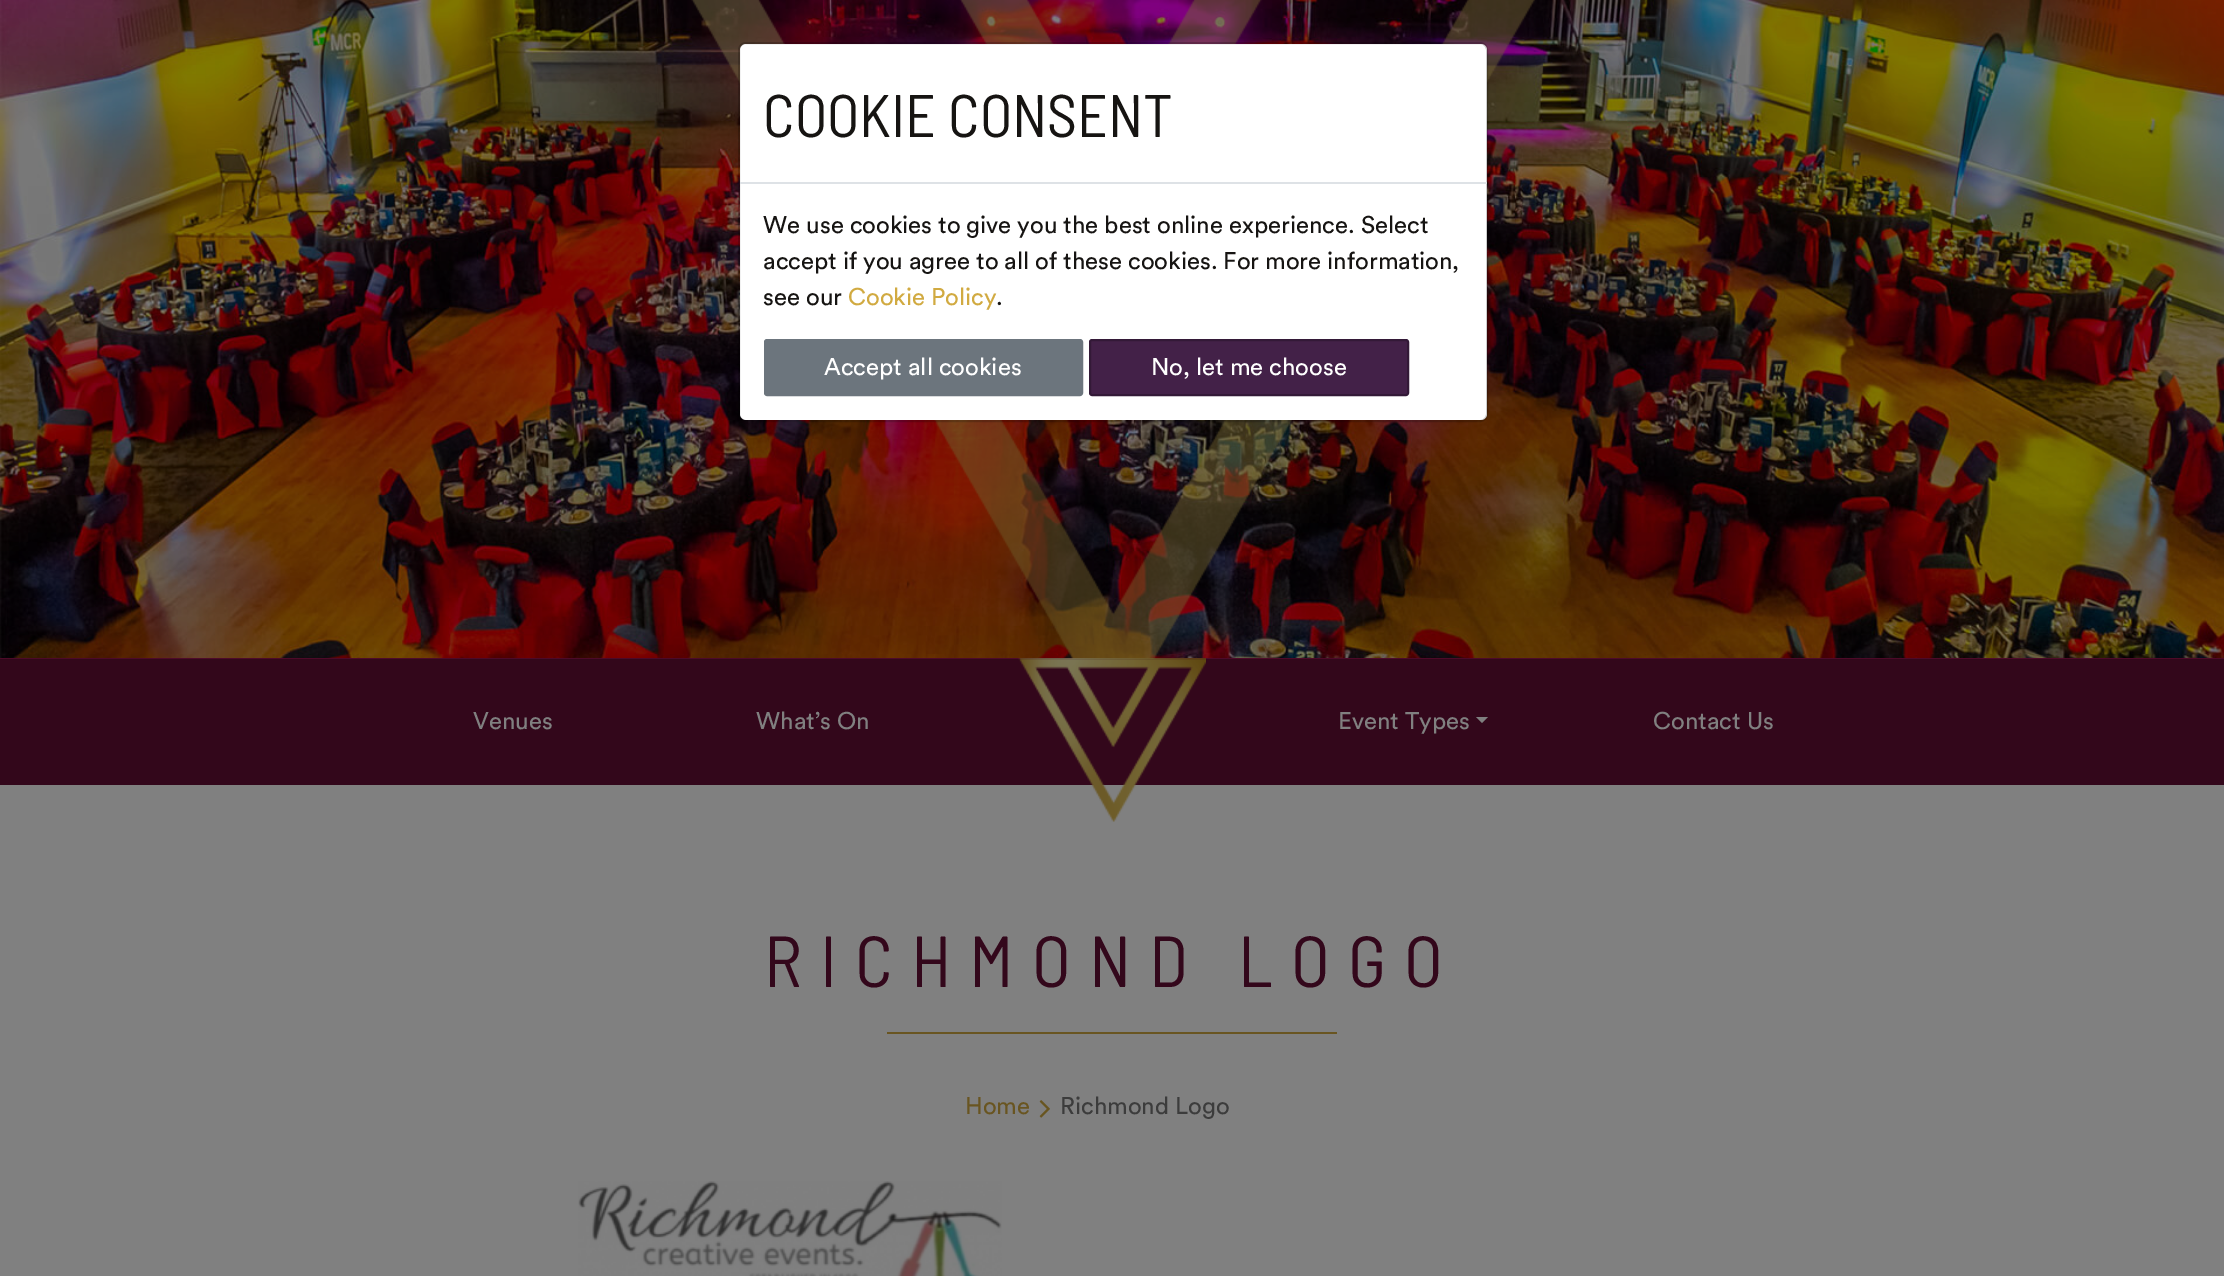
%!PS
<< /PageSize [2224 1276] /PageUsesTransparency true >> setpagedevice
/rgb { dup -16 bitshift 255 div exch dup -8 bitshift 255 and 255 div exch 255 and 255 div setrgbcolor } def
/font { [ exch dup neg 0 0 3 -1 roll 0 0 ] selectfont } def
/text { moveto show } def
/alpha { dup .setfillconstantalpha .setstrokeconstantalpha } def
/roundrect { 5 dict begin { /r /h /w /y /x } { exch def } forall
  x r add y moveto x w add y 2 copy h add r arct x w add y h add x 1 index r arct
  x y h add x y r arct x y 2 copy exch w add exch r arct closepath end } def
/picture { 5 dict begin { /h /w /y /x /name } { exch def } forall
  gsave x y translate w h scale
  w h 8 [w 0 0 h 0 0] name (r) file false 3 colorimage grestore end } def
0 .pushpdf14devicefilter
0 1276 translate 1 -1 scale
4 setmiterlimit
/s1 { /BarlowSemiCondensed-Regular 60 font 16#161412 rgb } def
/s2 { /Circular-Regular 24 font 16#161412 rgb } def
/s3 { /Circular-Regular 24 font 16#D1AA41 rgb } def
/s4 { /Circular-Regular 24 font 16#FFFFFF rgb } def
/s5 { /Circular-Regular 24 font 16#808080 rgb } def
/s6 { /Circular-Regular 24 font 16#695521 rgb } def
/s7 { /Circular-Regular 24 font 16#3C3C3C rgb } def
16#808080 rgb
0 0 2224 1276 rectfill
gsave 0 658 moveto 2224 658 lineto 2224 659 lineto 0 659 lineto closepath clip newpath
<< /ShadingType 2 /ColorSpace /DeviceRGB /Coords [1112 -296 1112 659] /Extend [true true] /Function << /FunctionType 2 /Domain [0 1] /C0 [0.2 0.027 0.106] /C1 [0.302 0.039 0.157] /N 1 >> >> shfill grestore
(pic1.raw) 0 0 2224 658 picture
(pic3.raw) 1071 658 85 1 picture
(pic2.raw) 691 0 844 659 picture
16#FFFFFF rgb
740 44 747 376 6 roundrect fill
0.2 alpha
16#000000 rgb
2 setlinewidth
739 43 748 378 7 roundrect stroke
1 alpha
16#DEE2E6 rgb
740 182 747 2 rectfill
s1
(COOKIE CONSENT) 763 137 text
s2
(We use cookies to give you the best online experience. Select) 763 233 text
(accept if you agree to all of these cookies. For more information,) 763 269 text
(see our) 763 305 text
s3
(Cookie Policy) 848 305 text
s2
(.) 996 305 text
16#6C757D rgb
765 340 317 55 2 roundrect gsave fill grestore
stroke
s4
(Accept all cookies) 824 375 text
16#432148 rgb
1090 340 318 55 2 roundrect gsave fill grestore
16#331937 rgb
stroke
s4
(No, let me choose) 1151 375 text
16#33071B rgb
0 659 2224 126 rectfill
s5
(Venues) 473 729 text
(What’s On) 756 729 text
(pic4.raw) 1018 658 188 164 picture
(Event Types) 1338 729 text
1476 717 moveto 1488 717 lineto 1482 723 lineto closepath fill
(Contact Us) 1653 729 text
/BarlowSemiCondensed-Regular 72 font
16#33071B rgb
764 987 moveto 18 0 (RICHMOND LOGO) ashow
16#695521 rgb
887 1032 450 2 rectfill
s6
(Home) 965 1114 text
(pic5.raw) 1039 1100 11 18 picture
s7
(Richmond Logo) 1060 1114 text
(pic6.raw) 578 1181 424 95 picture
.poppdf14devicefilter showpage
